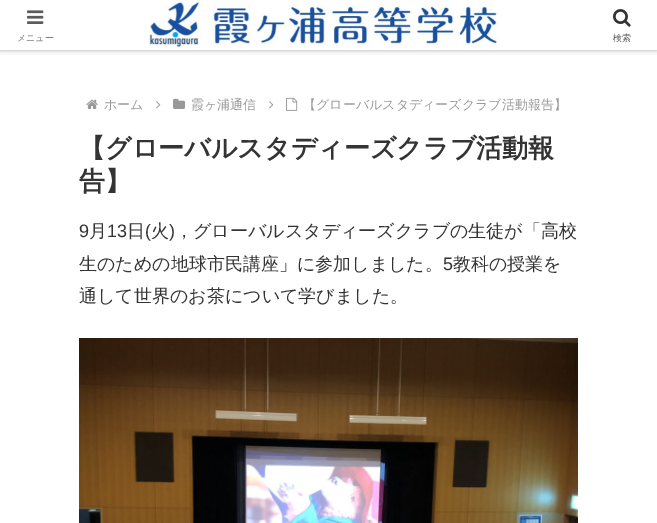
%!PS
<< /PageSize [657 523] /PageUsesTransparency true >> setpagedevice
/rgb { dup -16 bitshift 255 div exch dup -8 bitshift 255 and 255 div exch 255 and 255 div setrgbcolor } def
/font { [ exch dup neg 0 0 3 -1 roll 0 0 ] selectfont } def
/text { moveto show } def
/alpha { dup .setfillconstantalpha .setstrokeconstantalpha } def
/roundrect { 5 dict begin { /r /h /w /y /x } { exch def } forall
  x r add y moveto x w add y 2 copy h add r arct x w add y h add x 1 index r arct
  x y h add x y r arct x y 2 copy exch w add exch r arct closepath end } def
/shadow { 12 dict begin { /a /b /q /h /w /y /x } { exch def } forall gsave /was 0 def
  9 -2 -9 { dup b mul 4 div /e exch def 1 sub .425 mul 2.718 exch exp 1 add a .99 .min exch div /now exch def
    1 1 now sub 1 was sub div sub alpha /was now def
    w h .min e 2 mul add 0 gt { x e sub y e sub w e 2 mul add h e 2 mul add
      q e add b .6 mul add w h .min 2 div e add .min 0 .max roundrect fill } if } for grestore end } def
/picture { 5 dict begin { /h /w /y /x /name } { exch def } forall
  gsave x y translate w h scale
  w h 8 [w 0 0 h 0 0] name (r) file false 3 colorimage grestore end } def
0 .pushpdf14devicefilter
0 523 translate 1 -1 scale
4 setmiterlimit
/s1 { /WenQuanYiZenHei-Medium 9 font 16#7C7C7C rgb } def
/s2 { /WenQuanYiZenHei-Medium 9 font 16#5C5C5C rgb } def
/s3 { /WenQuanYiZenHei-Medium 13 font 16#999999 rgb } def
/s4 { /WenQuanYiZenHei-Bold 26 font 16#333333 rgb } def
/s5 { /LiberationSans-Regular 18 font 16#333333 rgb } def
/s6 { /WenQuanYiZenHei-Medium 18 font 16#333333 rgb } def
16#FFFFFF rgb
0 0 657 523 rectfill
gsave
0 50 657 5 rectclip
16#A9A9A9 rgb
0 0 657 50 0 2.5 1 shadow
grestore
(pic1.raw) 27 10 17 14 picture
s1
(メニュー) 17 41 text
(pic2.raw) 149 0 350 48 picture
(pic3.raw) 613 9 18 18 picture
s2
(検索) 613 41 text
(pic4.raw) 86 99 12 10 picture
s3
(ホーム) 104 109 text
(pic5.raw) 156 101 5 8 picture
(pic6.raw) 173 98 13 11 picture
(霞ヶ浦通信) 191 109 text
(pic5.raw) 269 101 5 8 picture
(pic7.raw) 286 97 12 14 picture
(【グローバルスタディーズクラブ活動報告】) 303 109 text
s4
(【グローバルスタディーズクラブ活動報) 79 157 text
(告】) 79 190 text
s5
(9) 79 237 text
s6
(月) 89 237 text
s5
(13) 107 237 text
s6
(日) 127 237 text
s5
(\() 145 237 text
s6
(火) 151 237 text
s5
(\)) 169 237 text
s6
(，グローバルスタディーズクラブの生徒が「高校) 175 237 text
(生のための地球市民講座」に参加しました。) 79 270 text
s5
(5) 443 270 text
s6
(教科の授業を) 453 270 text
(通して世界のお茶について学びました。) 79 302 text
(pic8.raw) 79 338 499 185 picture
.poppdf14devicefilter showpage
